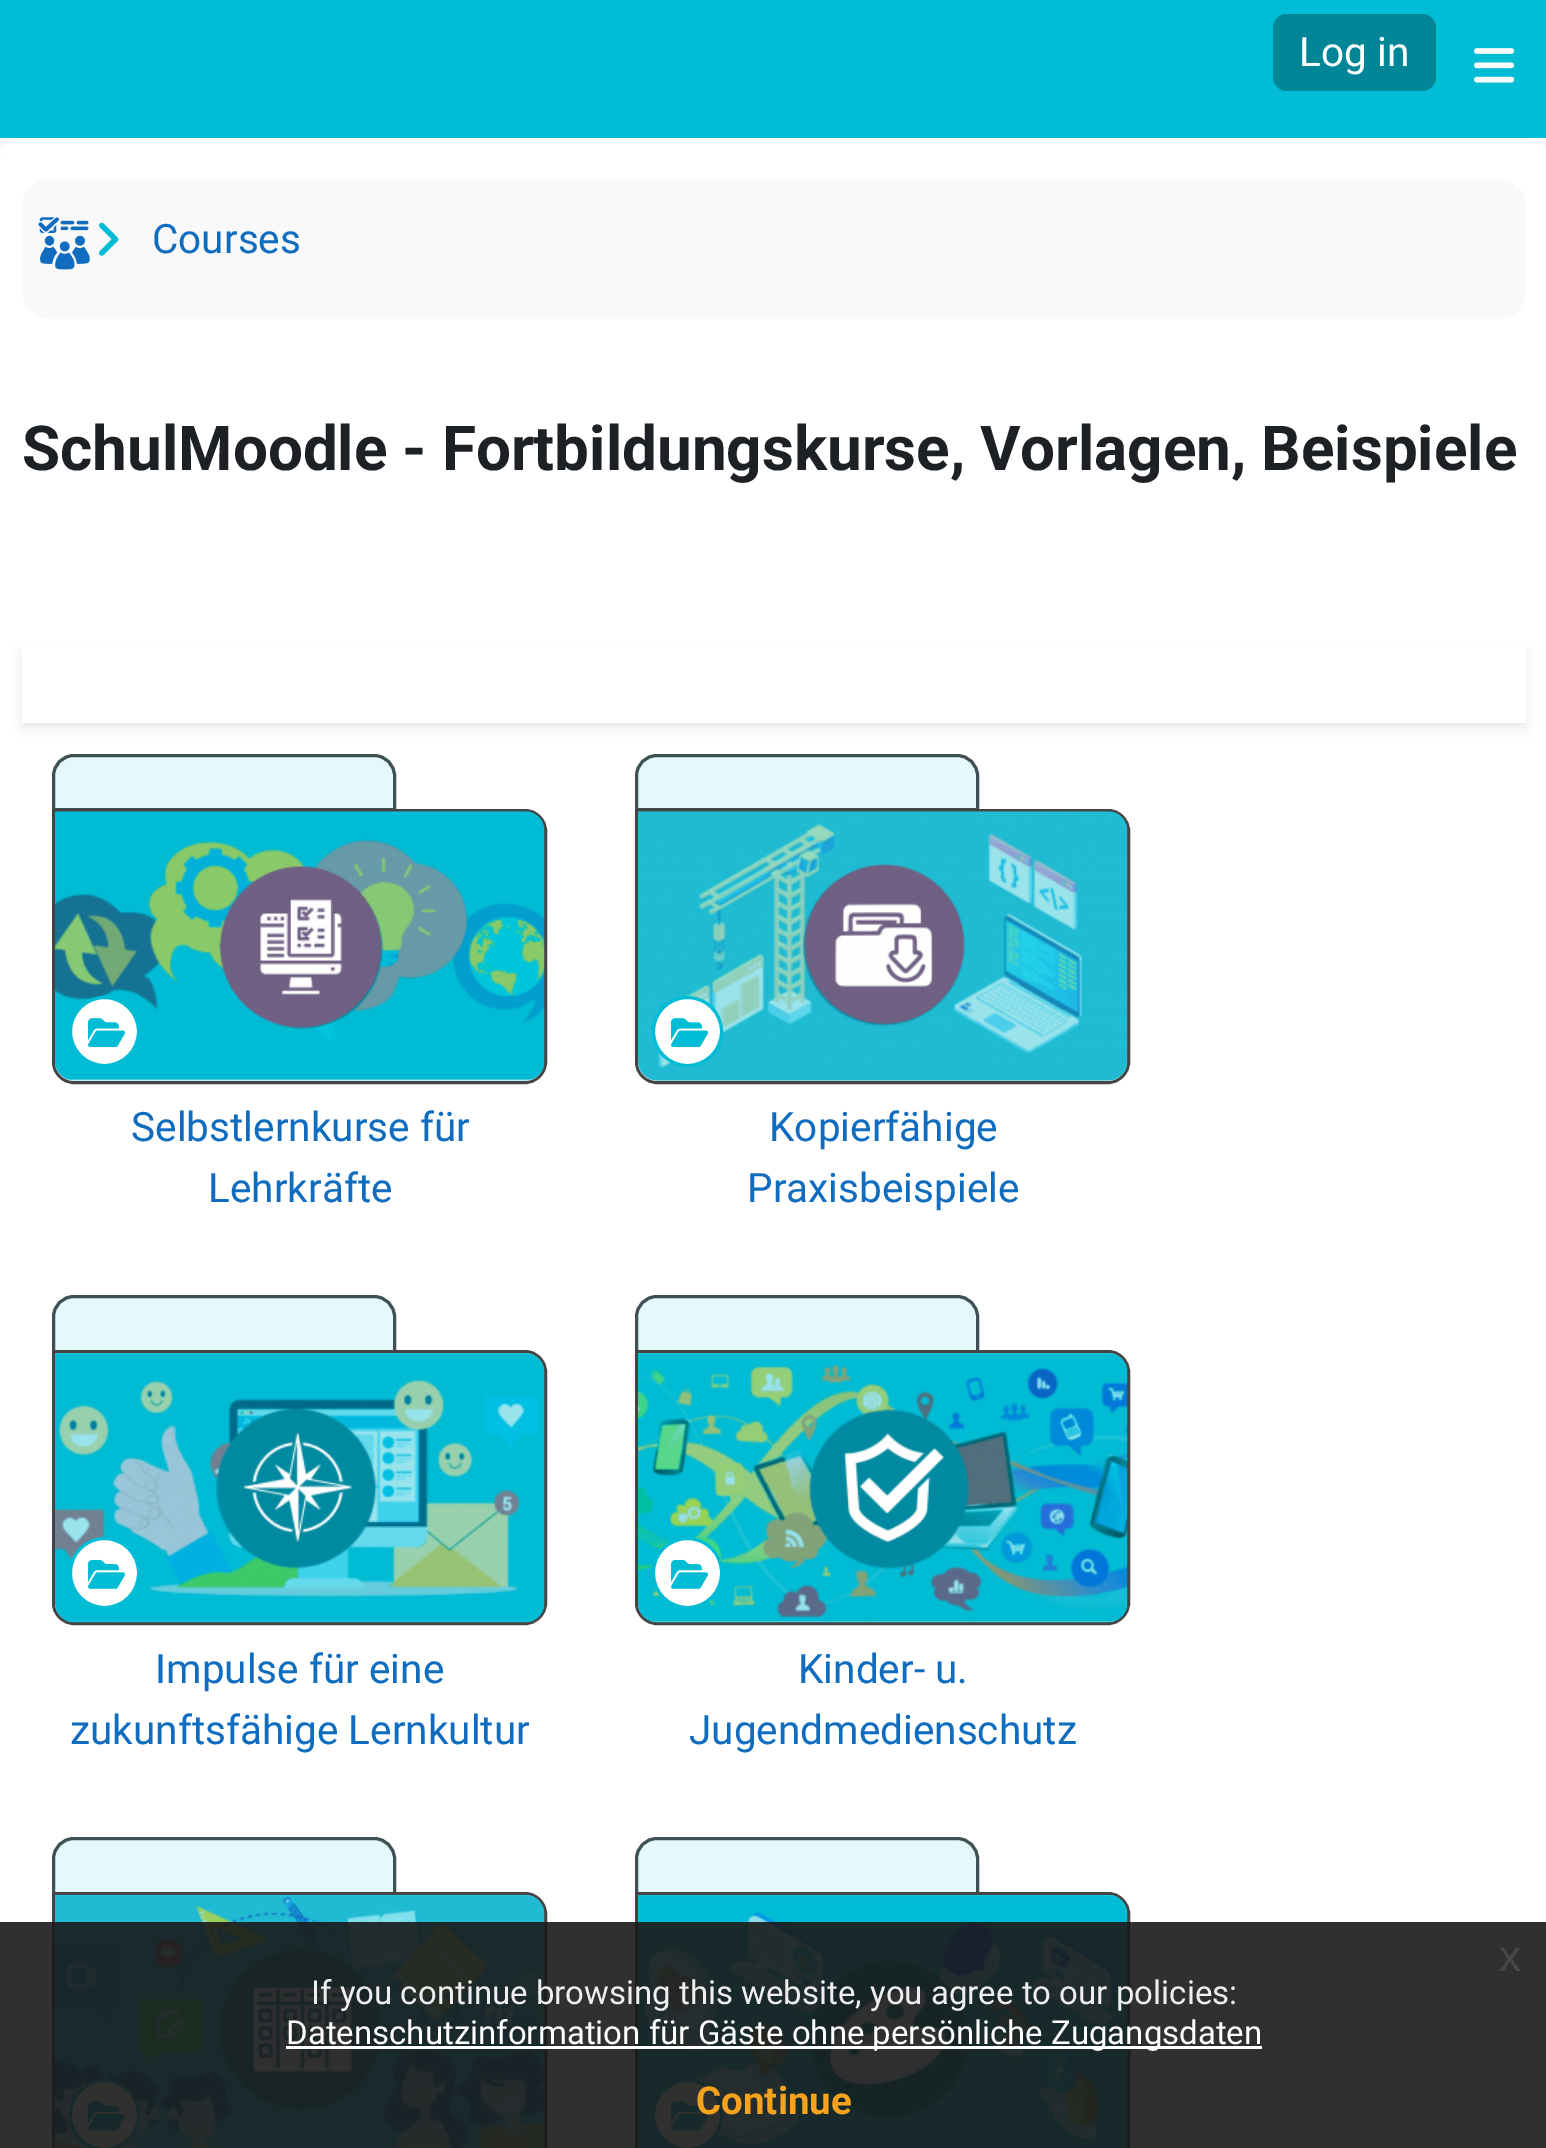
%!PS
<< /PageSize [1546 2148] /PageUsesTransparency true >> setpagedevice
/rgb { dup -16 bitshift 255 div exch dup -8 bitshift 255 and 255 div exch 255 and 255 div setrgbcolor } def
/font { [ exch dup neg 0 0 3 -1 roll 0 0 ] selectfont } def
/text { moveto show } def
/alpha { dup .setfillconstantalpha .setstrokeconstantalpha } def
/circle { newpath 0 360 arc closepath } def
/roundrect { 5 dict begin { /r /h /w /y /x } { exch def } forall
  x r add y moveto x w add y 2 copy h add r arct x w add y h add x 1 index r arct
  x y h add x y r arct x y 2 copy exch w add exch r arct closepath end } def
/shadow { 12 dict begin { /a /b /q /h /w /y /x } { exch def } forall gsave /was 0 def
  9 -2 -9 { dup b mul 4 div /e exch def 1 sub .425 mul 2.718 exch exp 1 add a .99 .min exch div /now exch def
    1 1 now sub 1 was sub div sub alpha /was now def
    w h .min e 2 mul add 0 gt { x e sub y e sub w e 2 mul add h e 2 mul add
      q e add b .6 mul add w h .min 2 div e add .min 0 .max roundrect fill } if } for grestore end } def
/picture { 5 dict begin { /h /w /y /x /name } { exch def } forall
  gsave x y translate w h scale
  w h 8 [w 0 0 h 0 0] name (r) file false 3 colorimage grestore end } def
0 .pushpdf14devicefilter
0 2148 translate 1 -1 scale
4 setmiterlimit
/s1 { /Roboto-Regular 40.5 font 16#FFFFFF rgb } def
/s2 { /Roboto-Regular 40.5 font 16#0F6CBF rgb } def
/s3 { /LiberationSans-Regular 44 font 16#474747 rgb } def
/s4 { /Roboto-Regular 33 font 16#EFEFEF rgb } def
/s5 { /Roboto-Regular 33 font 16#FFFFFF rgb } def
/s6 { /Roboto-Bold 38.5 font 16#F6A21D rgb } def
16#FAFAFA rgb
0 0 1546 2148 rectfill
16#00BCD4 rgb
0 0 1546 138 rectfill
16#008697 rgb
1273 14 163 77 14 roundrect fill
s1
(Log in) 1299 66 text
(pic1.raw) 1474 48 41 35 picture
0 138 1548 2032 22 roundrect fill
16#F9F9F9 rgb
22 179 1504 140 28 roundrect fill
(pic2.raw) 38 217 52 53 picture
(pic3.raw) 99 222 20 34 picture
s2
(Courses) 152 253 text
/Roboto-Bold 62 font
16#1D2125 rgb
22 470 moveto -0.5 0 32 (SchulMoodle - Fortbildungskurse, Vorlagen, Beispiele) widthshow
gsave
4 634 moveto 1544 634 lineto 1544 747 lineto 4 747 lineto closepath 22 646 moveto 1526 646 lineto 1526 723 lineto 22 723 lineto closepath eoclip newpath
16#000000 rgb
22 652 1504 77 0 5.5 0.08 shadow
grestore
16#444444 rgb
3 setlinewidth
74 755.5 moveto 374 755.5 lineto 385.5 755.5 394.5 764.5 394.5 776 curveto 394.5 809.5 lineto 53.5 809.5 lineto 53.5 776 lineto 53.5 764.5 62.5 755.5 74 755.5 curveto closepath stroke
0.1 alpha
16#00BCD4 rgb
74 754 moveto 374 754 lineto 386 754 396 764 396 776 curveto 396 811 lineto 52 811 lineto 52 776 lineto 52 764 62 754 74 754 curveto closepath fill
1 alpha
16#FFFFFF rgb
53.5 810.5 moveto 525 810.5 lineto 536.5 810.5 545.5 819.5 545.5 831 curveto 545.5 1062 lineto 545.5 1073.5 536.5 1082.5 525 1082.5 curveto 74 1082.5 lineto 62.5 1082.5 53.5 1073.5 53.5 1062 curveto closepath gsave fill grestore
16#444444 rgb
stroke
(pic4.raw) 55 811 490 270 picture
16#FFFFFE rgb
104.5 1031.5 34 circle gsave fill grestore
16#00BCD4 rgb
stroke
(pic5.raw) 88 1018 38 30 picture
s2
(Selbstlernkurse für) 131 1141 text
(Lehrkräfte) 208 1202 text
16#444444 rgb
657 755.5 moveto 957 755.5 lineto 968.5 755.5 977.5 764.5 977.5 776 curveto 977.5 809.5 lineto 636.5 809.5 lineto 636.5 776 lineto 636.5 764.5 645.5 755.5 657 755.5 curveto closepath stroke
0.1 alpha
16#00BCD4 rgb
657 754 moveto 957 754 lineto 969 754 979 764 979 776 curveto 979 811 lineto 635 811 lineto 635 776 lineto 635 764 645 754 657 754 curveto closepath fill
1 alpha
16#FFFFFF rgb
636.5 810.5 moveto 1108 810.5 lineto 1119.5 810.5 1128.5 819.5 1128.5 831 curveto 1128.5 1062 lineto 1128.5 1073.5 1119.5 1082.5 1108 1082.5 curveto 657 1082.5 lineto 645.5 1082.5 636.5 1073.5 636.5 1062 curveto closepath gsave fill grestore
16#444444 rgb
stroke
(pic6.raw) 638 811 490 270 picture
16#FFFFFE rgb
687.5 1031.5 34 circle gsave fill grestore
16#00BCD4 rgb
stroke
(pic5.raw) 671 1018 38 30 picture
s2
(Kopierfähige) 769 1141 text
(Praxisbeispiele) 747 1202 text
16#444444 rgb
74 1296.5 moveto 374 1296.5 lineto 385.5 1296.5 394.5 1305.5 394.5 1317 curveto 394.5 1351.5 lineto 53.5 1351.5 lineto 53.5 1317 lineto 53.5 1305.5 62.5 1296.5 74 1296.5 curveto closepath stroke
0.1 alpha
16#00BCD4 rgb
74 1295 moveto 374 1295 lineto 386 1295 396 1305 396 1317 curveto 396 1353 lineto 52 1353 lineto 52 1317 lineto 52 1305 62 1295 74 1295 curveto closepath fill
1 alpha
16#444444 rgb
53.5 1351.5 moveto 525 1351.5 lineto 536.5 1351.5 545.5 1360.5 545.5 1372 curveto 545.5 1603 lineto 545.5 1614.5 536.5 1623.5 525 1623.5 curveto 74 1623.5 lineto 62.5 1623.5 53.5 1614.5 53.5 1603 curveto closepath stroke
(pic7.raw) 55 1353 490 270 picture
16#FFFFFE rgb
70.5 1538.5 68 69 34 roundrect gsave fill grestore
16#00BCD4 rgb
stroke
(pic8.raw) 88 1559 38 30 picture
s2
(Impulse für eine) 155 1683 text
(zukunftsfähige Lernkultur) 70 1744 text
16#444444 rgb
657 1296.5 moveto 957 1296.5 lineto 968.5 1296.5 977.5 1305.5 977.5 1317 curveto 977.5 1351.5 lineto 636.5 1351.5 lineto 636.5 1317 lineto 636.5 1305.5 645.5 1296.5 657 1296.5 curveto closepath stroke
0.1 alpha
16#00BCD4 rgb
657 1295 moveto 957 1295 lineto 969 1295 979 1305 979 1317 curveto 979 1353 lineto 635 1353 lineto 635 1317 lineto 635 1305 645 1295 657 1295 curveto closepath fill
1 alpha
16#444444 rgb
636.5 1351.5 moveto 1108 1351.5 lineto 1119.5 1351.5 1128.5 1360.5 1128.5 1372 curveto 1128.5 1603 lineto 1128.5 1614.5 1119.5 1623.5 1108 1623.5 curveto 657 1623.5 lineto 645.5 1623.5 636.5 1614.5 636.5 1603 curveto closepath stroke
(pic9.raw) 638 1353 490 270 picture
16#FFFFFE rgb
653.5 1538.5 68 69 34 roundrect gsave fill grestore
16#00BCD4 rgb
stroke
(pic8.raw) 671 1559 38 30 picture
s2
(Kinder- u.) 798 1683 text
(Jugendmedienschutz) 689 1744 text
16#444444 rgb
74 1838.5 moveto 374 1838.5 lineto 385.5 1838.5 394.5 1847.5 394.5 1859 curveto 394.5 1893.5 lineto 53.5 1893.5 lineto 53.5 1859 lineto 53.5 1847.5 62.5 1838.5 74 1838.5 curveto closepath stroke
0.1 alpha
16#00BCD4 rgb
74 1837 moveto 374 1837 lineto 386 1837 396 1847 396 1859 curveto 396 1895 lineto 52 1895 lineto 52 1859 lineto 52 1847 62 1837 74 1837 curveto closepath fill
1 alpha
16#444444 rgb
53.5 1893.5 moveto 525 1893.5 lineto 536.5 1893.5 545.5 1902.5 545.5 1914 curveto 545.5 2145 lineto 545.5 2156.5 536.5 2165.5 525 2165.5 curveto 74 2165.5 lineto 62.5 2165.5 53.5 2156.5 53.5 2145 curveto closepath stroke
(pic10.raw) 55 1894 490 254 picture
16#FFFFFE rgb
70.5 2080.5 68 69 34 roundrect gsave fill grestore
16#00BCD4 rgb
stroke
(pic11.raw) 88 2101 38 30 picture
16#444444 rgb
657 1838.5 moveto 957 1838.5 lineto 968.5 1838.5 977.5 1847.5 977.5 1859 curveto 977.5 1893.5 lineto 636.5 1893.5 lineto 636.5 1859 lineto 636.5 1847.5 645.5 1838.5 657 1838.5 curveto closepath stroke
0.1 alpha
16#00BCD4 rgb
657 1837 moveto 957 1837 lineto 969 1837 979 1847 979 1859 curveto 979 1895 lineto 635 1895 lineto 635 1859 lineto 635 1847 645 1837 657 1837 curveto closepath fill
1 alpha
16#444444 rgb
636.5 1893.5 moveto 1108 1893.5 lineto 1119.5 1893.5 1128.5 1902.5 1128.5 1914 curveto 1128.5 2145 lineto 1128.5 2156.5 1119.5 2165.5 1108 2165.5 curveto 657 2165.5 lineto 645.5 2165.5 636.5 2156.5 636.5 2145 curveto closepath stroke
(pic12.raw) 638 1894 490 254 picture
16#FFFFFE rgb
653.5 2080.5 68 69 34 roundrect gsave fill grestore
16#00BCD4 rgb
stroke
(pic11.raw) 671 2101 38 30 picture
0.9 alpha
16#191919 rgb
0 1922 1546 226 rectfill
1 alpha
s3
(x) 1499 1971 text
s4
(If you continue browsing this website, you agree to our policies:) 311 2004 text
16#FFFFFF rgb
286 2046 976 3 rectfill
(Datenschutzinformation für Gäste ohne persönliche Zugangsdaten) 286 2044 text
s6
(Continue) 696 2114 text
.poppdf14devicefilter showpage
